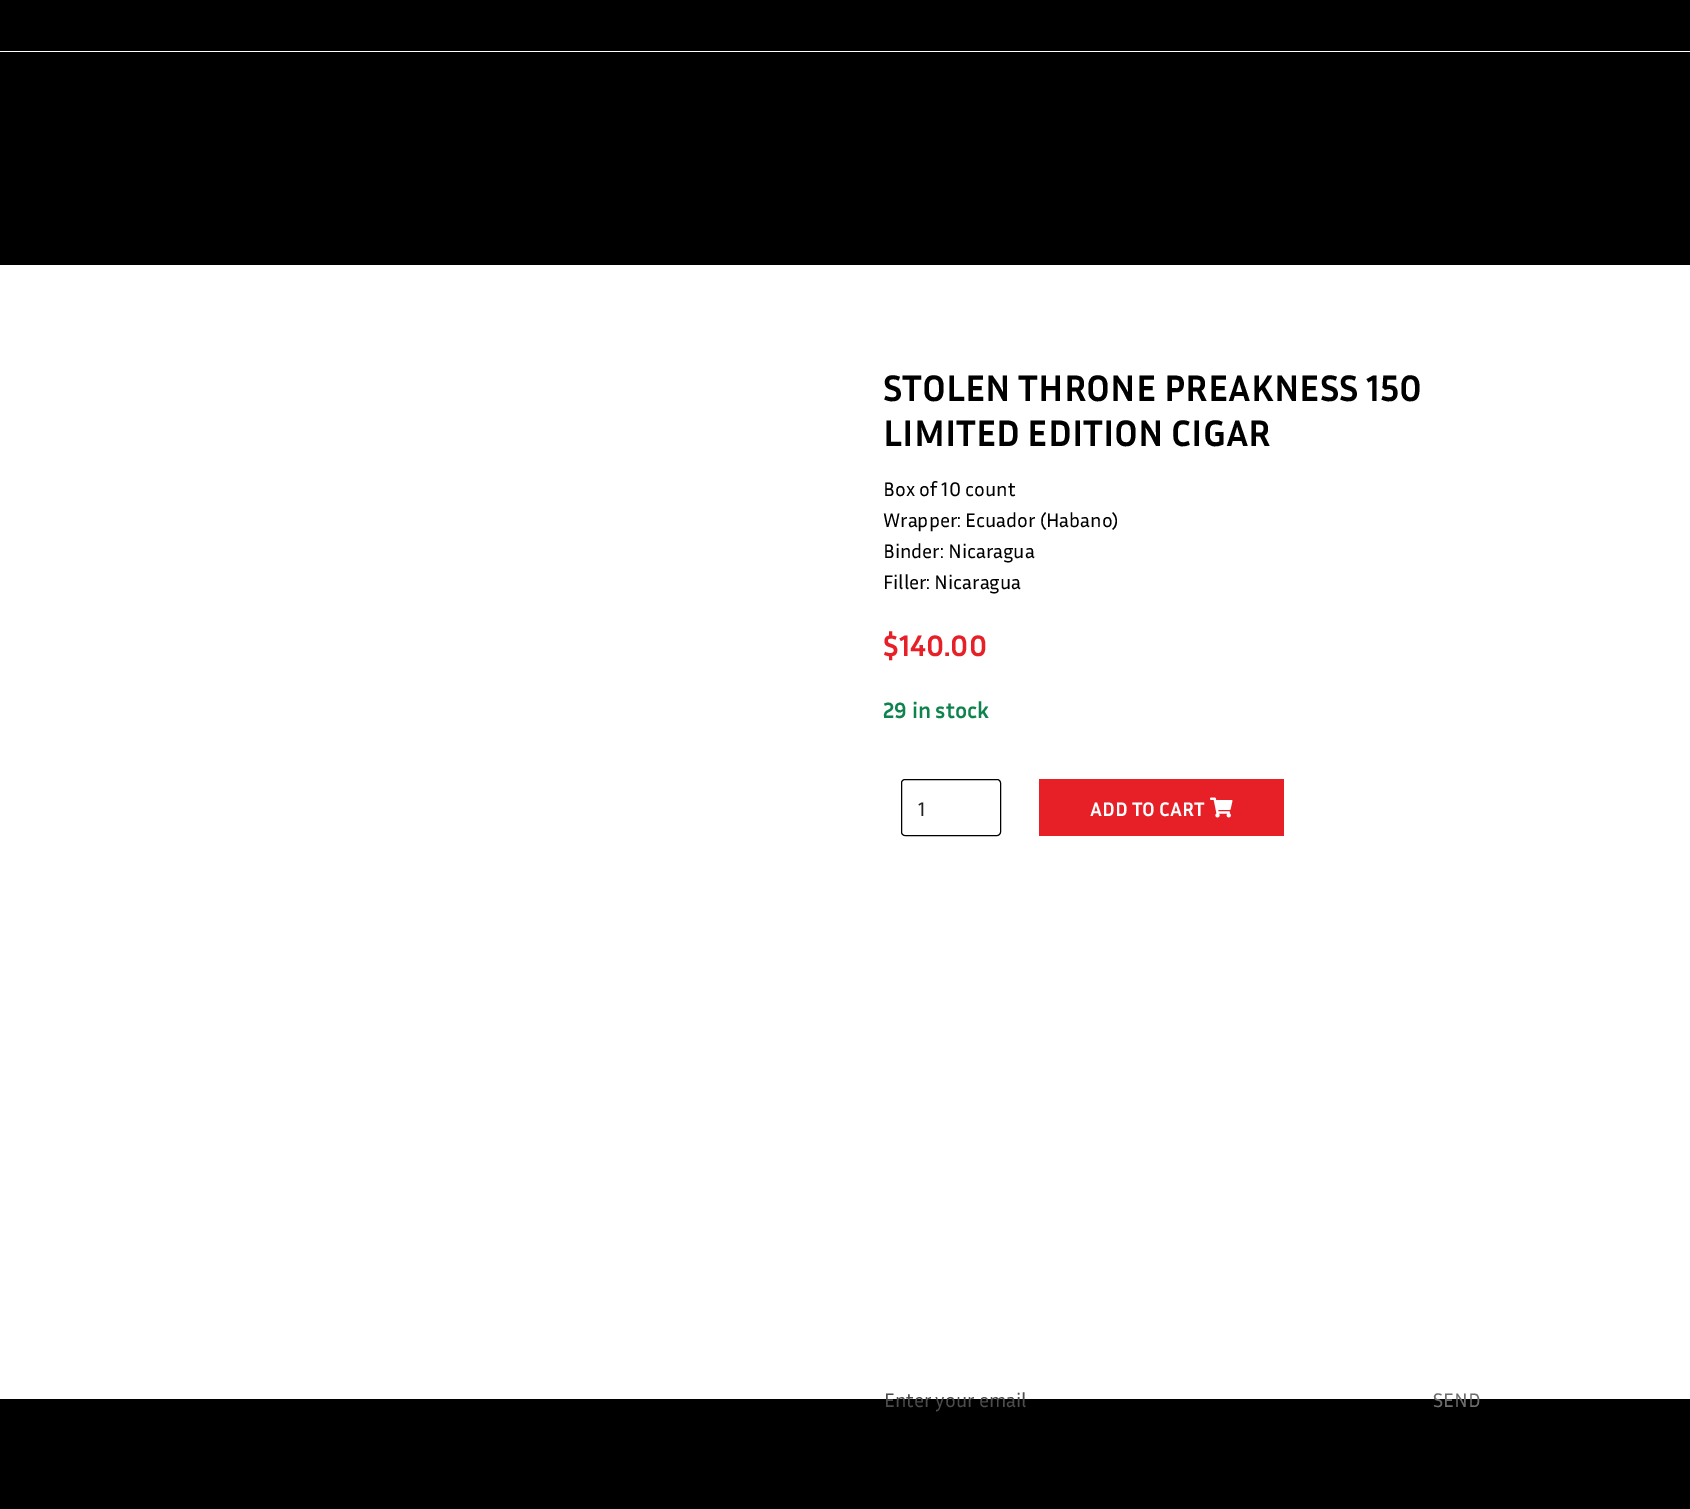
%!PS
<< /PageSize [1690 1509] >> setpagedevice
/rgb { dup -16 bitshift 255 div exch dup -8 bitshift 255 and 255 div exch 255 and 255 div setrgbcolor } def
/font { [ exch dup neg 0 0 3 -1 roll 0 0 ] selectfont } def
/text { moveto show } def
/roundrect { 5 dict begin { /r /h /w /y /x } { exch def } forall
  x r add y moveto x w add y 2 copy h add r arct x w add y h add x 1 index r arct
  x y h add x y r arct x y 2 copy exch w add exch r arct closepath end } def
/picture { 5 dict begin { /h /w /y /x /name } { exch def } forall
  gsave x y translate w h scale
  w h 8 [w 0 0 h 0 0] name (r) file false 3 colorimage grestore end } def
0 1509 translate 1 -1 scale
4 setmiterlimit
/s1 { /InriaSans-Bold 37.5 font 16#000000 rgb } def
/s2 { /InriaSans-Regular 20 font 16#000000 rgb } def
/s3 { /InriaSans-Bold 30 font 16#E72027 rgb } def
/s4 { /InriaSans-Bold 22.5 font 16#0F834D rgb } def
/s5 { /InriaSans-Regular 20 font 16#222222 rgb } def
/s6 { /InriaSans-Bold 20 font 16#FFFFFF rgb } def
/s7 { /InriaSans-Regular 20 font 16#4C4C4C rgb } def
/s8 { /InriaSans-Regular 20 font 16#6E6E6E rgb } def
16#FFFFFF rgb
0 0 1690 1509 rectfill
16#000000 rgb
0 0 1690 265 rectfill
16#FFFFFF rgb
0 51 1690 1 rectfill
s1
(STOLEN THRONE PREAKNESS 150) 883 401 text
(LIMITED EDITION CIGAR) 883 446 text
s2
(Box of 10 count) 883 496 text
(Wrapper: Ecuador \(Habano\)) 883 527 text
(Binder: Nicaragua) 883 558 text
(Filler: Nicaragua) 883 589 text
s3
($140.00) 883 656 text
s4
(29 in stock) 883 718 text
16#000000 rgb
901.5 779.5 99 56 3.5 roundrect stroke
s5
(1) 918 816 text
16#E72027 rgb
1039 779 245 57 rectfill
s6
(ADD TO CART) 1090 816 text
(pic1.raw) 1210 797 23 21 picture
16#000000 rgb
0 1399 1690 110 rectfill
s7
(Enter your email) 884 1407 text
s8
(SEND) 1433 1407 text
showpage
